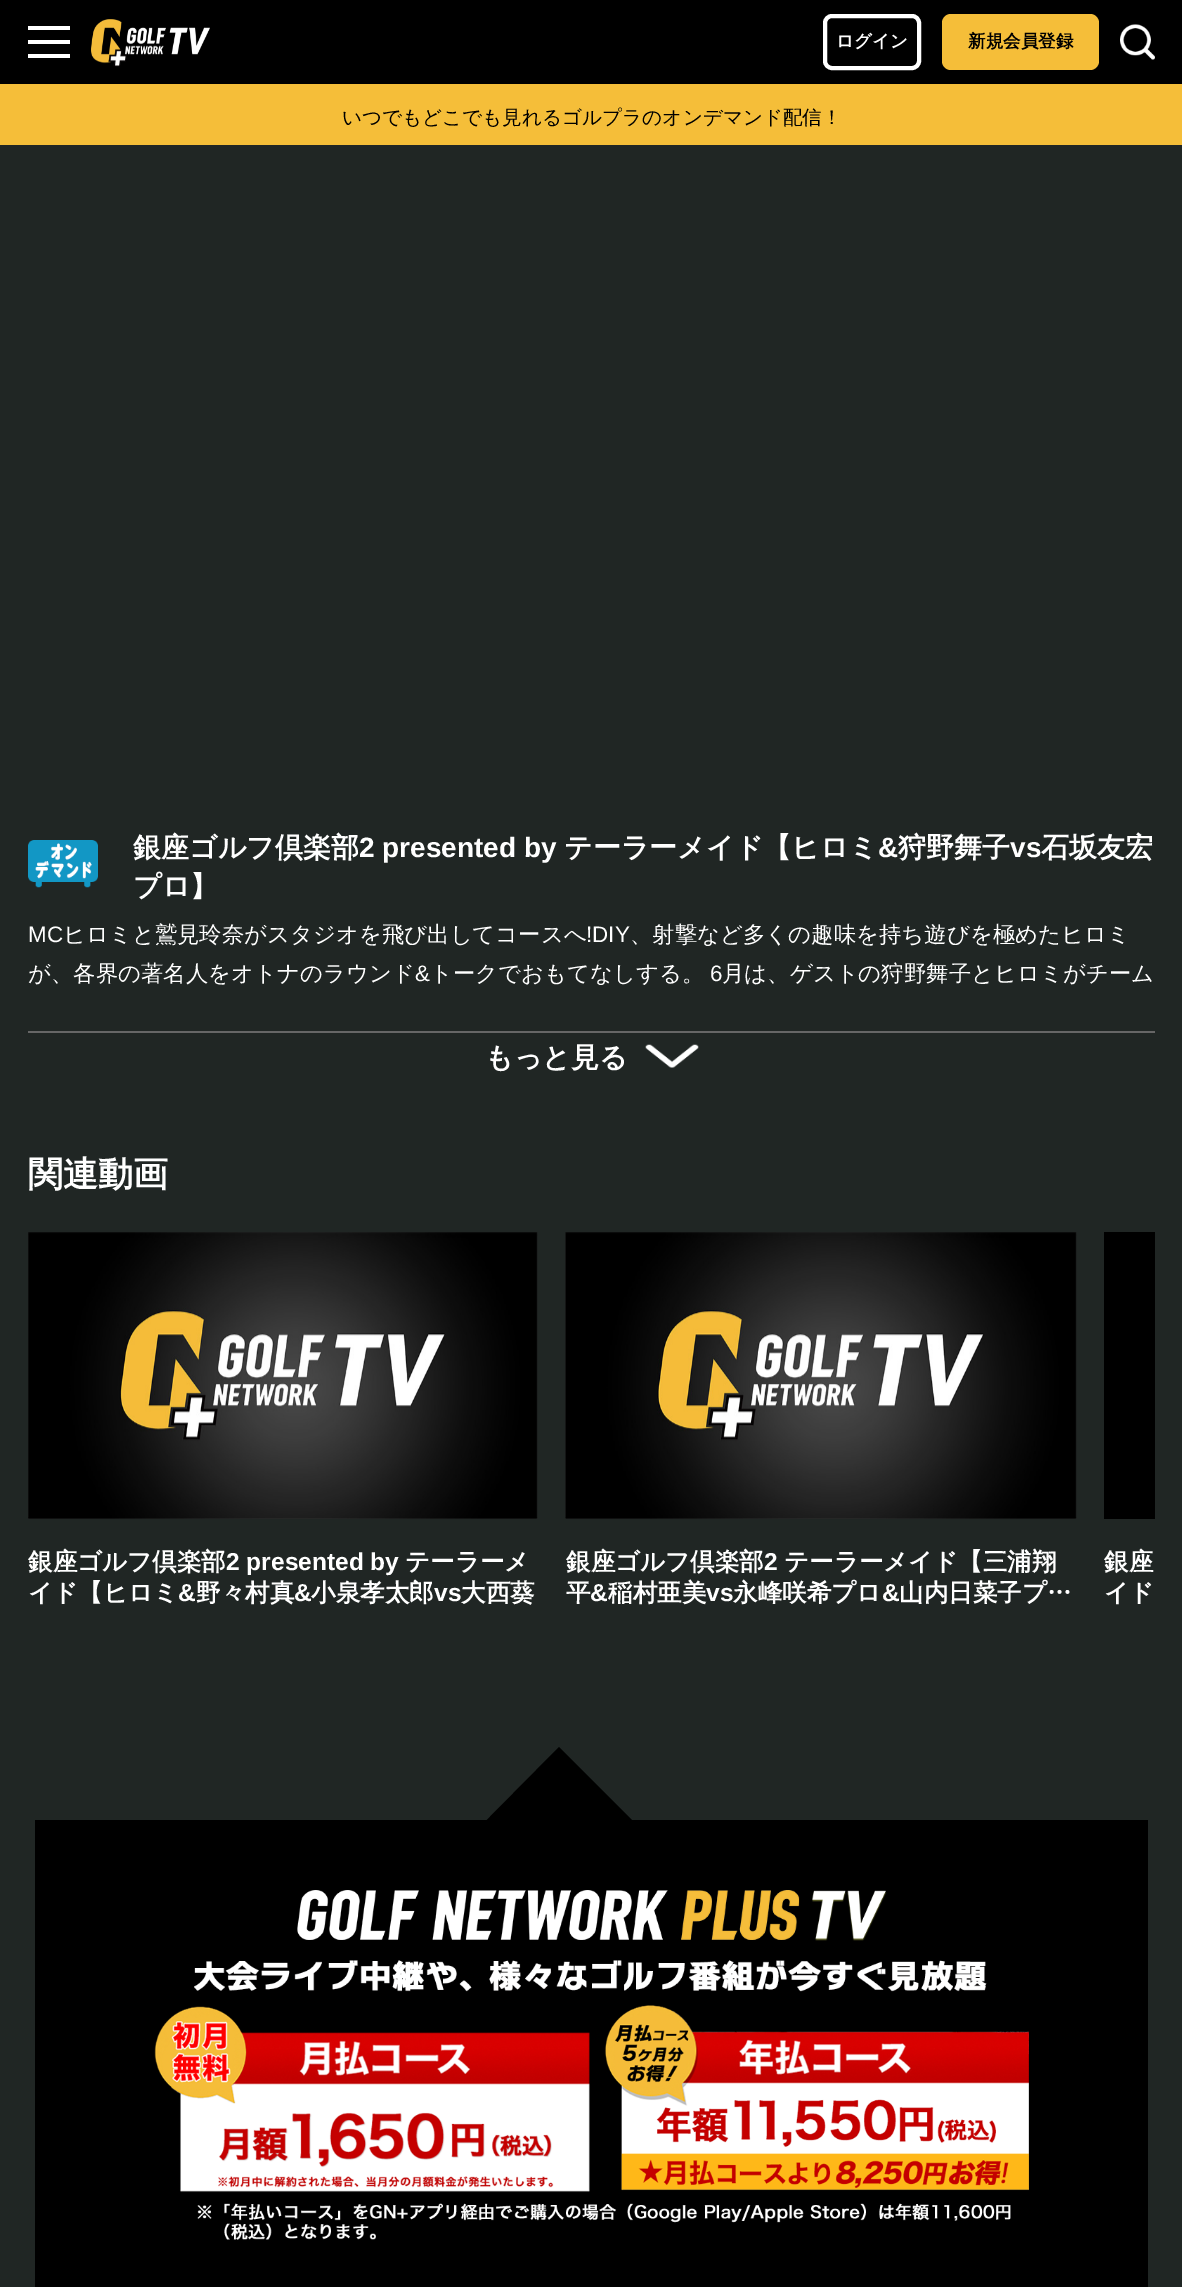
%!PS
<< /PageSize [1182 2287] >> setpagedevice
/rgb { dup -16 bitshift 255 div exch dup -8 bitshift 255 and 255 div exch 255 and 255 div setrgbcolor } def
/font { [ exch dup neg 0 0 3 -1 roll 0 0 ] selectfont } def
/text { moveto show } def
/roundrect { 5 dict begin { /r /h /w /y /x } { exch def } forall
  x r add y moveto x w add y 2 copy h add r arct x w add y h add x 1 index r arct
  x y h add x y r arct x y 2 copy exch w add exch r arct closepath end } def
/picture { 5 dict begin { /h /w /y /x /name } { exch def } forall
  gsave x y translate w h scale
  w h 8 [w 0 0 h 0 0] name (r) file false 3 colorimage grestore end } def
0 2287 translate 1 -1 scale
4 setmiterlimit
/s1 { /WenQuanYiZenHei-Bold 17.5 font 16#FFFFFF rgb } def
/s2 { /WenQuanYiZenHei-Bold 17.5 font 16#000000 rgb } def
/s3 { /WenQuanYiZenHei-Medium 19.6 font 16#000000 rgb } def
/s4 { /WenQuanYiZenHei-Bold 28 font 16#FFFFFF rgb } def
/s5 { /LiberationSans-Bold 28 font 16#FFFFFF rgb } def
/s6 { /LiberationSans-Regular 22.4 font 16#FFFFFF rgb } def
/s7 { /WenQuanYiZenHei-Medium 22.4 font 16#FFFFFF rgb } def
/s8 { /WenQuanYiZenHei-Bold 35 font 16#FFFFFF rgb } def
/s9 { /WenQuanYiZenHei-Bold 24.5 font 16#FFFFFF rgb } def
/s10 { /LiberationSans-Bold 24.5 font 16#FFFFFF rgb } def
16#202624 rgb
0 0 1182 2287 rectfill
16#000000 rgb
0 0 1182 84 rectfill
16#FFFFFF rgb
28 26 42 4 rectfill
28 40 42 4 rectfill
28 54 42 4 rectfill
(pic1.raw) 91 19 119 48 picture
4 setlinewidth
825 16 94 52 7 roundrect stroke
s1
(ログイン) 836 47 text
16#F5BE39 rgb
942 14 157 56 9 roundrect fill
s2
(新規会員登録) 968 47 text
(pic2.raw) 1120 24 35 36 picture
16#F5BE39 rgb
0 84 1182 61 rectfill
s3
(いつでもどこでも見れるゴルプラのオンデマンド配信！) 342 124 text
(pic3.raw) 28 840 70 48 picture
s4
(銀座ゴルフ倶楽部) 133 857 text
s5
(2 presented by) 359 857 text
s4
(テーラーメイド【ヒロミ) 564 857 text
s5
(&) 878 857 text
s4
(狩野舞子) 898 857 text
s5
(vs) 1010 857 text
s4
(石坂友宏) 1041 857 text
(プロ】) 133 896 text
s6
(MC) 28 942 text
s7
(ヒロミと鷲見玲奈がスタジオを飛び出してコースへ) 63 942 text
s6
(!DIY) 586 942 text
s7
(、射撃など多くの趣味を持ち遊びを極めたヒロミ) 630 942 text
(が、各界の著名人をオトナのラウンド) 28 981 text
s6
(&) 415 981 text
s7
(トークでおもてなしする。) 430 981 text
s6
(6) 710 981 text
s7
(月は、ゲストの狩野舞子とヒロミがチーム) 722 981 text
16#666666 rgb
28 1031 1127 2 rectfill
s4
(もっと見る) 485 1067 text
(pic4.raw) 645 1044 54 24 picture
s8
(関連動画) 28 1186 text
(pic5.raw) 28 1232 510 287 picture
s9
(銀座ゴルフ倶楽部) 28 1570 text
s10
(2 presented by) 226 1570 text
s9
(テーラーメ) 405 1570 text
(イド【ヒロミ) 28 1601 text
s10
(&) 178 1601 text
s9
(野々村真) 196 1601 text
s10
(&) 294 1601 text
s9
(小泉孝太郎) 311 1601 text
s10
(vs) 434 1601 text
s9
(大西葵) 461 1601 text
(pic6.raw) 565 1232 512 287 picture
(銀座ゴルフ倶楽部) 566 1570 text
s10
(2) 764 1570 text
s9
(テーラーメイド【三浦翔) 784 1570 text
(平) 566 1601 text
s10
(&) 590 1601 text
s9
(稲村亜美) 608 1601 text
s10
(vs) 706 1601 text
s9
(永峰咲希プロ) 733 1601 text
s10
(&) 882 1601 text
s9
(山内日菜子プ…) 899 1601 text
16#000000 rgb
1104 1232 51 287 rectfill
s9
(銀座) 1104 1570 text
(イド) 1104 1601 text
16#000000 rgb
559 1747 moveto 716 1904 lineto 624 1997 lineto 467 1840 lineto closepath fill
35 1820 1113 467 rectfill
(pic7.raw) 154 1890 875 350 picture
showpage
